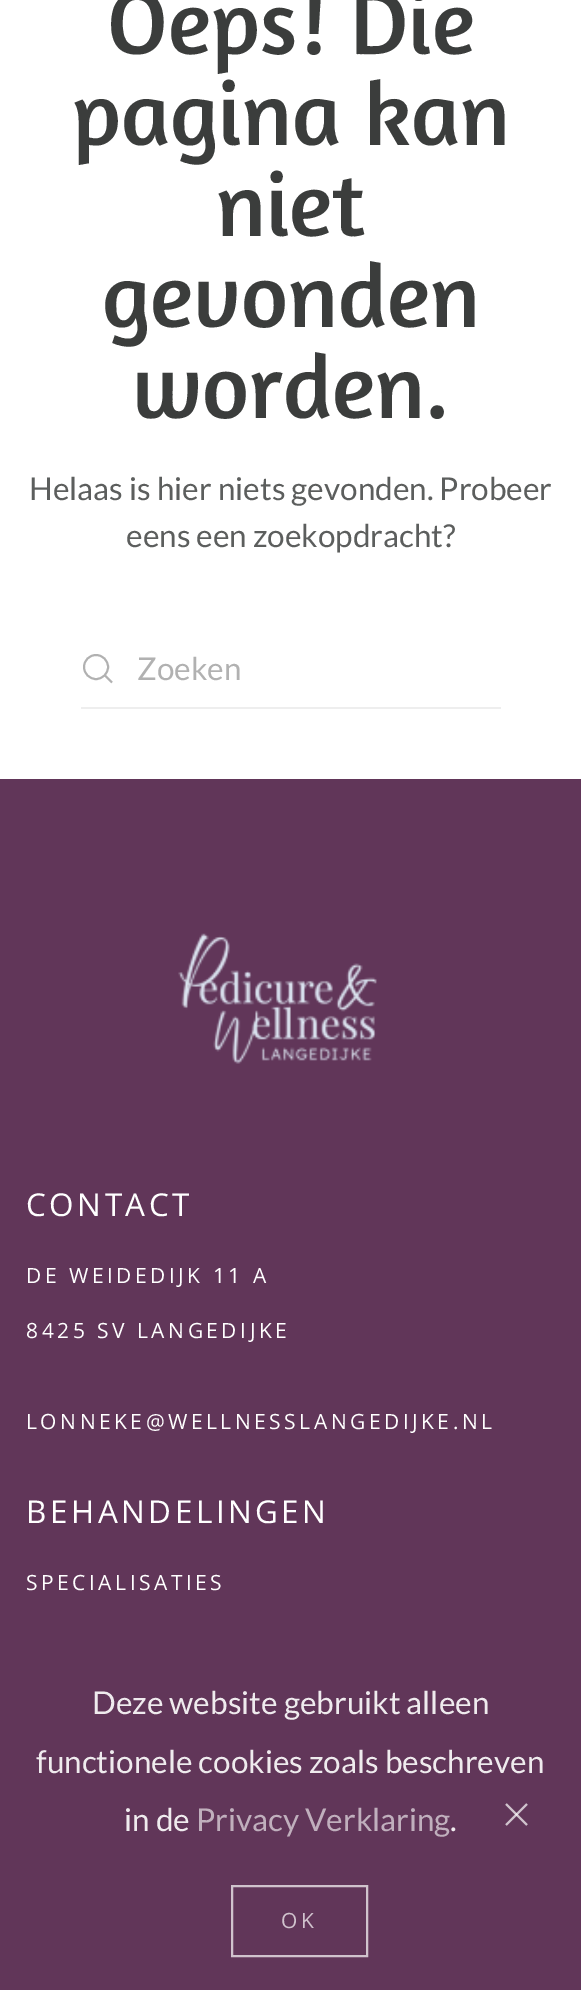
%!PS
<< /PageSize [581 1990] /PageUsesTransparency true >> setpagedevice
/rgb { dup -16 bitshift 255 div exch dup -8 bitshift 255 and 255 div exch 255 and 255 div setrgbcolor } def
/font { [ exch dup neg 0 0 3 -1 roll 0 0 ] selectfont } def
/text { moveto show } def
/alpha { dup .setfillconstantalpha .setstrokeconstantalpha } def
/circle { newpath 0 360 arc closepath } def
/picture { 5 dict begin { /h /w /y /x /name } { exch def } forall
  gsave x y translate w h scale
  w h 8 [w 0 0 h 0 0] name (r) file false 3 colorimage grestore end } def
0 .pushpdf14devicefilter
0 1990 translate 1 -1 scale
4 setmiterlimit
/s1 { /Amaranth-Regular 91 font 16#3B3D3C rgb } def
/s2 { /Lato-Regular 31.5 font 16#5C5E5D rgb } def
/s3 { /Lato-Regular 31.5 font 16#B1B1B1 rgb } def
/s4 { /Lato-Regular 31.5 font 16#EFEBEE rgb } def
/s5 { /Lato-Regular 31.5 font 16#C0AFBD rgb } def
16#FFFFFF rgb
0 0 581 1990 rectfill
s1
(Oeps! Die) 107 54 text
(pagina kan) 72 145 text
(niet) 216 236 text
(gevonden) 102 327 text
(worden.) 132 418 text
s2
(Helaas is hier niets gevonden. Probeer) 29 500 text
(eens een zoekopdracht?) 126 547 text
16#B1B1B1 rgb
1.9 setlinewidth
96 667 12 circle stroke
105 675.5 moveto 112 682.5 lineto closepath stroke
16#EEEEEE rgb
81 707 420 2 rectfill
s3
(Zoeken) 137 680 text
16#613659 rgb
0 779 581 1211 rectfill
(pic1.raw) 178 933 199 131 picture
/OpenSans-Regular 31.5 font
16#FFFFFF rgb
26 1216 moveto 3.5 0 (CONTACT) ashow
/OpenSans-Regular 21 font
26 1283 moveto 3.5 0 (DE WEIDEDIJK 11 A) ashow
26 1338 moveto 3.5 0 (8425 SV LANGEDIJKE) ashow
26 1429 moveto 3.5 0 (LONNEKE@WELLNESSLANGEDIJKE.NL) ashow
/OpenSans-Regular 31.5 font
26 1523 moveto 3.5 0 (BEHANDELINGEN) ashow
/OpenSans-Regular 21 font
26 1590 moveto 3.5 0 (SPECIALISATIES) ashow
s4
(Deze website gebruikt alleen) 92 1714 text
(functionele cookies zoals beschreven) 36 1773 text
(in de) 124 1831 text
s5
(Privacy Verklaring) 196 1831 text
s4
(.) 450 1831 text
16#D0C3CD rgb
506 1804 moveto 527 1825 lineto stroke
0.7 alpha
16#FFFFFF rgb
527 1804 moveto 506 1825 lineto stroke
1 alpha
16#D0C3CD rgb
2 setlinewidth
232 1886 135 70 rectstroke
/OpenSans-Regular 21 font
281 1928 moveto 3.5 0 (OK) ashow
.poppdf14devicefilter showpage
